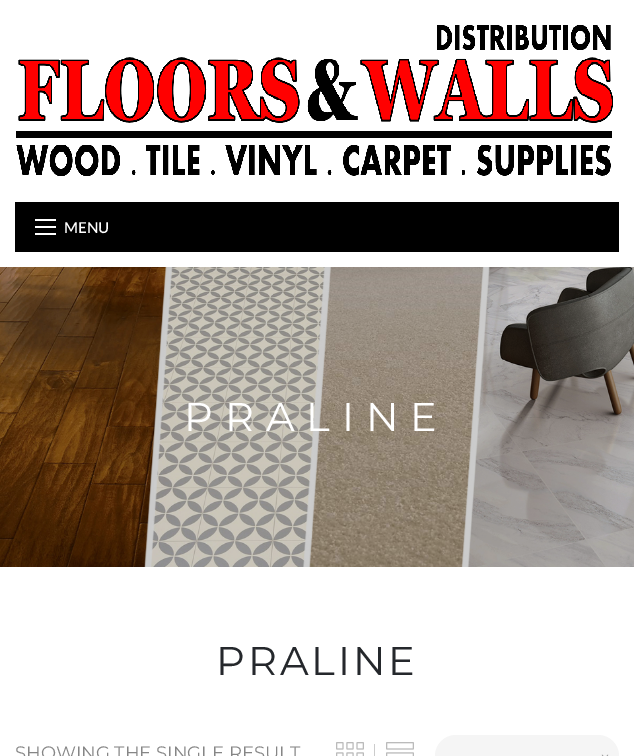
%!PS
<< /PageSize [634 756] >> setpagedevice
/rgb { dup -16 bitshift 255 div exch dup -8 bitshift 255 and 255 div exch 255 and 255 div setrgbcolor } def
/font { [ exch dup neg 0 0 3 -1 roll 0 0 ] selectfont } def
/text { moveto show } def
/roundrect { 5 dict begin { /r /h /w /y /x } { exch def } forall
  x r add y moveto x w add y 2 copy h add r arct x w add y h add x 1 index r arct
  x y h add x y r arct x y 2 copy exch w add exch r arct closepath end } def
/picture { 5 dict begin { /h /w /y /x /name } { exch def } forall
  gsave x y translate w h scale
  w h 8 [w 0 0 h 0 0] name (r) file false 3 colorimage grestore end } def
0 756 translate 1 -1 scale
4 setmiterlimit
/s1 { /Lato-SemiBold 15 font 16#FFFFFF rgb } def
/s2 { /Montserrat-Regular 18 font 16#868686 rgb } def
16#FFFFFF rgb
0 0 634 756 rectfill
(pic1.raw) 16 25 597 151 picture
16#000000 rgb
15 202 604 50 rectfill
16#FFFFFF rgb
35 226 21 2 rectfill
35 219 21 2 rectfill
35 233 21 2 rectfill
s1
(MENU) 64 233 text
(pic2.raw) 0 267 634 300 picture
/Montserrat-Regular 40 font
184 431 moveto 12 0 (PRALINE) ashow
16#25282C rgb
216 675 moveto 3 0 (PRALINE) ashow
s2
(SHOWING THE SINGLE RESULT) 15 759 text
(pic3.raw) 336 742 28 14 picture
16#CCCCCC rgb
374 744 1 12 rectfill
(pic4.raw) 386 742 28 14 picture
16#F5F5F5 rgb
435 735 184 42 21 roundrect fill
(pic5.raw) 601 754 8 2 picture
showpage
